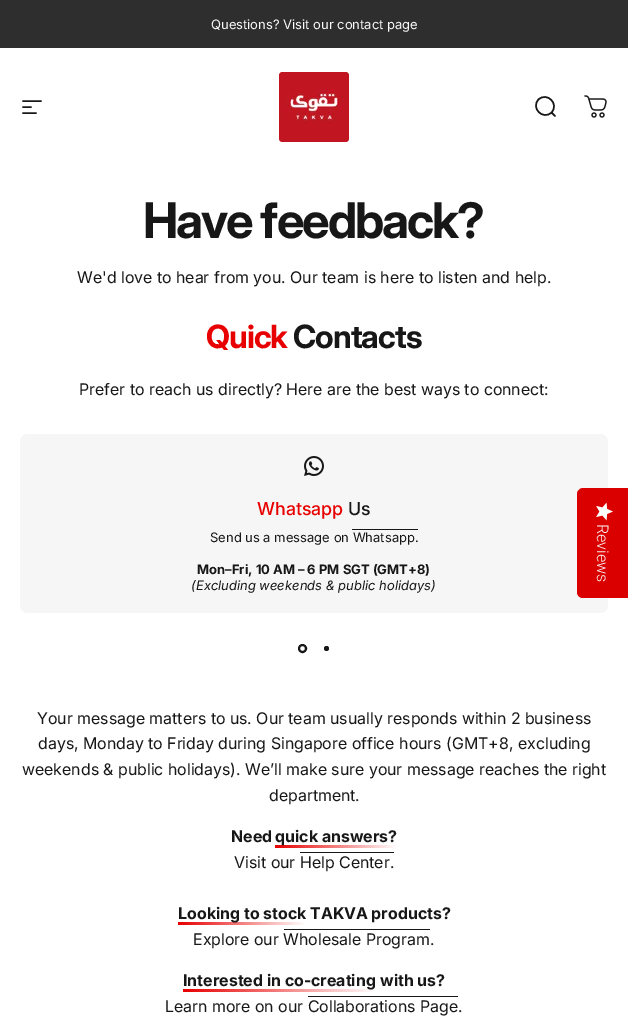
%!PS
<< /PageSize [628 1027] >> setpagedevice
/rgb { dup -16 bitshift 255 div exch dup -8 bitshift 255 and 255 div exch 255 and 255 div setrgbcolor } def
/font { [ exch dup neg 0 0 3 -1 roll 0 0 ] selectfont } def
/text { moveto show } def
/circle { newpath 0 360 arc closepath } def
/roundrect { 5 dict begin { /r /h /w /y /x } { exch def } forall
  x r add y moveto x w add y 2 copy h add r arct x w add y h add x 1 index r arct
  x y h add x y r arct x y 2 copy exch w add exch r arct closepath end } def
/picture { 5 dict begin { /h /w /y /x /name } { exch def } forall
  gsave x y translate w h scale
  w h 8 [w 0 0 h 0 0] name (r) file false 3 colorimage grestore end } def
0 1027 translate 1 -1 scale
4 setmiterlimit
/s1 { /Inter-Regular 13 font 16#FAFAFA rgb } def
/s2 { /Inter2-Regular 16 font 16#171717 rgb } def
/s3 { /Inter-Medium 18 font 16#E80000 rgb } def
/s4 { /Inter-Medium 18 font 16#171717 rgb } def
/s5 { /Inter-Regular 13 font 16#171717 rgb } def
/s6 { /Inter2-Bold 13 font 16#171717 rgb } def
/s7 { /Inter-Italic 13 font 16#171717 rgb } def
/s8 { /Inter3-Bold 16 font 16#171717 rgb } def
16#FFFFFF rgb
0 0 628 1027 rectfill
16#2E2E2E rgb
0 0 628 48 rectfill
s1
(Questions? Visit our contact page) 211 29 text
16#171717 rgb
1.5 setlinewidth
1 setlinecap
23 101 moveto 41 101 lineto 23 107 moveto 31 107 lineto 23 113 moveto 36 113 lineto stroke
(pic1.raw) 279 72 70 70 picture
555 116 moveto 551.5 112.5 lineto 551.5 112.5 moveto 559.5 104 547 91.5 538.5 99.5 curveto 530.5 108 543 120.5 551.5 112.5 curveto closepath stroke
(pic2.raw) 584 95 23 23 picture
/Inter-Bold 49 font
143 238 moveto -2 0 (Have feedback?) ashow
s2
(We'd love to hear from you. Our team is here to listen and help.) 77 283 text
/Inter-Bold 32 font
16#E80000 rgb
206 348 moveto -1 0 (Quick) ashow
16#171717 rgb
293 348 moveto -1 0 (Contacts) ashow
s2
(Prefer to reach us directly? Here are the best ways to connect:) 79 395 text
16#F6F6F6 rgb
20 434 588 179 8 roundrect fill
(pic3.raw) 304 456 20 20 picture
s3
(Whatsapp) 257 515 text
s4
(Us) 348 515 text
352 529 66 1 rectfill
s5
(Send us a message on Whatsapp.) 210 542 text
s6
(Mon–Fri, 10 AM – 6 PM SGT \(GMT+8\)) 197 574 text
s7
(\(Excluding weekends & public holidays\)) 191 590 text
2 setlinewidth
0 setlinecap
302.5 648.5 3.5 circle stroke
326.5 648.5 2.5 circle fill
s2
(Your message matters to us. Our team usually responds within 2 business) 37 724 text
(days, Monday to Friday during Singapore office hours \(GMT+8, excluding) 38 749 text
(weekends & public holidays\). We’ll make sure your message reaches the right) 22 775 text
(department.) 269 801 text
s8
(Need) 231 842 text
gsave 275 845 moveto 397 845 lineto 397 848 lineto 275 848 lineto closepath clip newpath
<< /ShadingType 2 /ColorSpace /DeviceRGB /Coords [275 846 397 846] /Extend [true true] /Function << /FunctionType 2 /Domain [0 1] /C0 [0.91 0 0] /C1 [1 1 1] /N 1 >> >> shfill grestore
(quick answers?) 275 842 text
300 852 94 1 rectfill
s2
(Visit our Help Center.) 234 868 text
gsave 178 922 moveto 306 922 lineto 306 925 lineto 178 925 lineto closepath clip newpath
<< /ShadingType 2 /ColorSpace /DeviceRGB /Coords [178 923 306 923] /Extend [true true] /Function << /FunctionType 2 /Domain [0 1] /C0 [0.91 0 0] /C1 [1 1 1] /N 1 >> >> shfill grestore
s8
(Looking to stock) 178 919 text
(TAKVA products?) 310 919 text
284 929 146 1 rectfill
s2
(Explore our Wholesale Program) 193 945 text
(.) 430 945 text
gsave 183 989 moveto 376 989 lineto 376 992 lineto 183 992 lineto closepath clip newpath
<< /ShadingType 2 /ColorSpace /DeviceRGB /Coords [183 990 376 990] /Extend [true true] /Function << /FunctionType 2 /Domain [0 1] /C0 [0.91 0 0] /C1 [1 1 1] /N 1 >> >> shfill grestore
s8
(Interested in co-creating) 183 986 text
(with us?) 380 986 text
308 996 150 1 rectfill
s2
(Learn more on our Collaborations Page) 165 1012 text
(.) 458 1012 text
16#DB0000 rgb
628 488 moveto 628 598 lineto 583 598 lineto 580 598 577 596 577 592 curveto 577 494 lineto 577 491 580 488 583 488 curveto closepath fill
(pic4.raw) 596 502 17 19 picture
/Roboto-Light 16 font
16#FAFAFA rgb
gsave 597 524 translate 90 rotate 0 0 moveto (Reviews) show grestore
showpage
